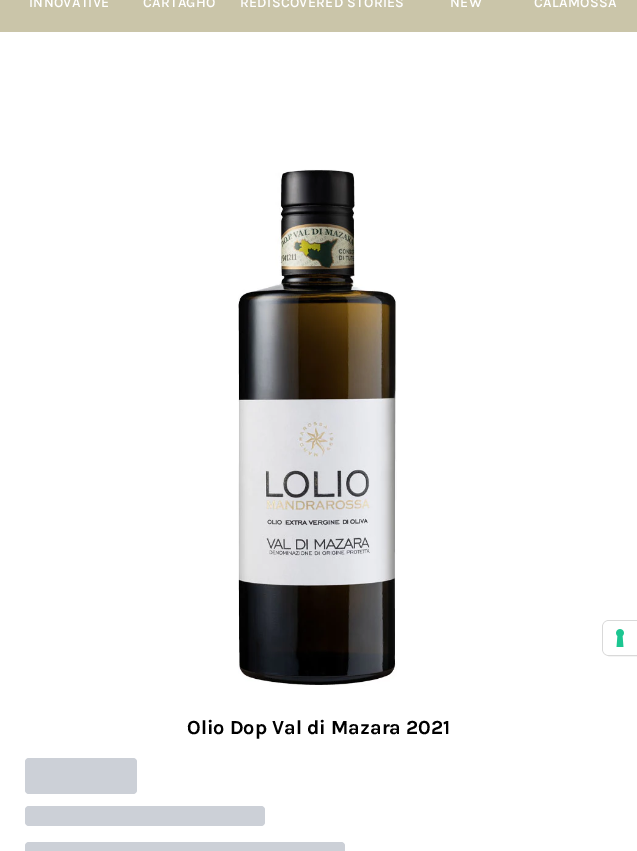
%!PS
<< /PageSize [637 851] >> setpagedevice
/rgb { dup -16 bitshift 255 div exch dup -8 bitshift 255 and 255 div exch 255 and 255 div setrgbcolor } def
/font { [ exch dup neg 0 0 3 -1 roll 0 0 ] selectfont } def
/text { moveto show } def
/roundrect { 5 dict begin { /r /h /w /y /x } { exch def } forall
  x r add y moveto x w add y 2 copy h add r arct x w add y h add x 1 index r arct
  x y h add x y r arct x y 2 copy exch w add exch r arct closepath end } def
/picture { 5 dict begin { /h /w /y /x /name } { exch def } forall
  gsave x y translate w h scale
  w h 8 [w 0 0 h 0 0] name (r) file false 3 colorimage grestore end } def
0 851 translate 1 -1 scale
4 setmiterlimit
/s1 { /Karla-Bold 20 font 16#000000 rgb } def
16#FFFFFF rgb
0 0 637 851 rectfill
16#CAC5A9 rgb
0 0 637 32 rectfill
/Karla-SemiBold 14 font
16#FFFFFF rgb
29 7 moveto 0.25 0 (INNOVATIVE) ashow
143 7 moveto 0.25 0 (CARTAGHO) ashow
240 7 moveto 0.25 0 (REDISCOVERED STORIES) ashow
450 7 moveto 0.25 0 (NEW) ashow
534 7 moveto 0.25 0 (CALAMOSSA) ashow
(pic1.raw) 238 169 159 517 picture
s1
(Olio Dop Val di Mazara 2021) 187 734 text
16#CCD0D7 rgb
25 758 112 36 4 roundrect fill
25 806 240 20 4 roundrect fill
25 842 320 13 4 roundrect fill
16#D9D9D9 rgb
609 620.5 moveto 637.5 620.5 lineto 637.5 655.5 lineto 609 655.5 lineto 605.5 655.5 602.5 652.5 602.5 649 curveto 602.5 627 lineto 602.5 623.5 605.5 620.5 609 620.5 curveto closepath stroke
16#FFFFFF rgb
609 621 moveto 637 621 lineto 637 655 lineto 609 655 lineto 605.5 655 603 652.5 603 649 curveto 603 627 lineto 603 623.5 605.5 621 609 621 curveto closepath fill
(pic2.raw) 616 629 8 18 picture
showpage
